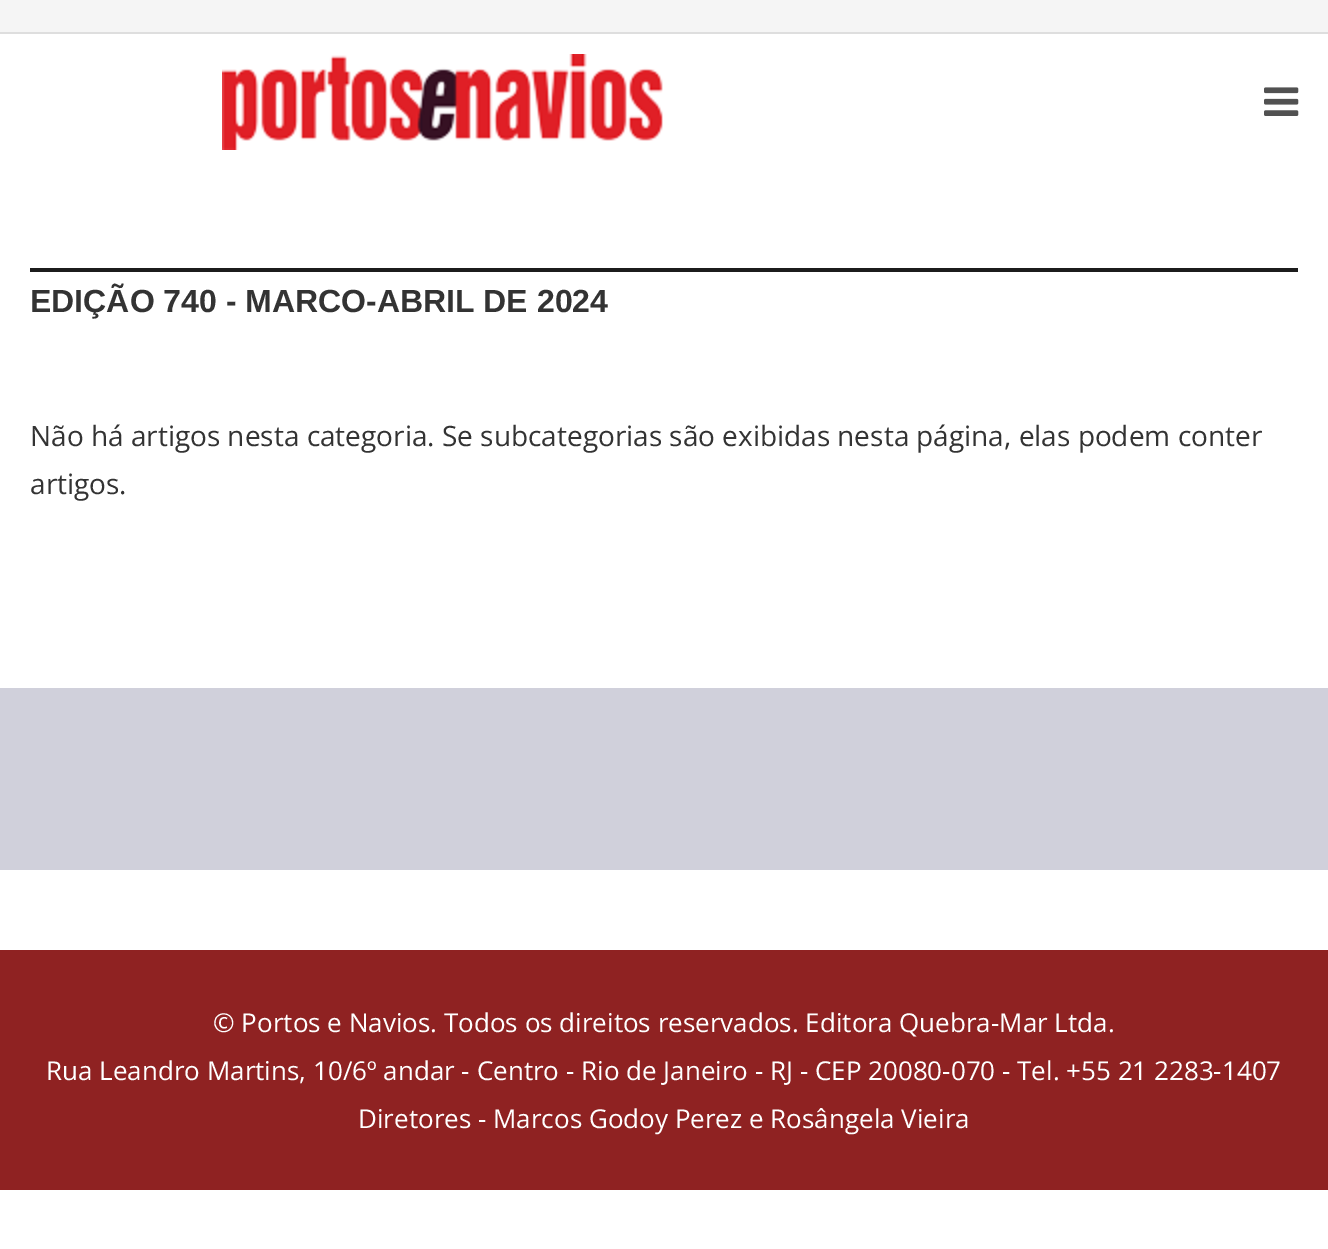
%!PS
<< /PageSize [1328 1249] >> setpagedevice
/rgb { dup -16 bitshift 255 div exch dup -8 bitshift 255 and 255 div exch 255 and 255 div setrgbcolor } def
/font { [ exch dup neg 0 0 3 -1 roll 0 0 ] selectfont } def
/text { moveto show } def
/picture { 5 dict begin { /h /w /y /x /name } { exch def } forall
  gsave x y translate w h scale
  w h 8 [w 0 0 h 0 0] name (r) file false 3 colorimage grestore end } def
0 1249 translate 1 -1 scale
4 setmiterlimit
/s1 { /Arimo-Bold 32 font 16#333333 rgb } def
/s2 { /OpenSans-Regular 28 font 16#333333 rgb } def
/s3 { /OpenSans-Regular 26 font 16#FFFFFF rgb } def
16#FFFFFF rgb
0 0 1328 1249 rectfill
16#F5F5F5 rgb
0 0 1328 32 rectfill
16#DEDEDE rgb
0 32 1328 2 rectfill
(pic1.raw) 222 54 441 96 picture
(pic2.raw) 1264 87 35 29 picture
16#1C1C1C rgb
30 268 1268 4 rectfill
s1
(EDIÇÃO 740 - MARCO-ABRIL DE 2024) 30 312 text
s2
(Não há artigos nesta categoria. Se subcategorias são exibidas nesta página, elas podem conter) 30 446 text
(artigos.) 30 494 text
16#D0D0DB rgb
0 688 1328 182 rectfill
16#8F2222 rgb
0 950 1328 240 rectfill
s3
(© Portos e Navios. Todos os direitos reservados. Editora Quebra-Mar Ltda.) 213 1032 text
(Rua Leandro Martins, 10/6º andar - Centro - Rio de Janeiro - RJ - CEP 20080-070 - Tel. +55 21 2283-1407) 46 1080 text
(Diretores - Marcos Godoy Perez e Rosângela Vieira) 358 1128 text
showpage
